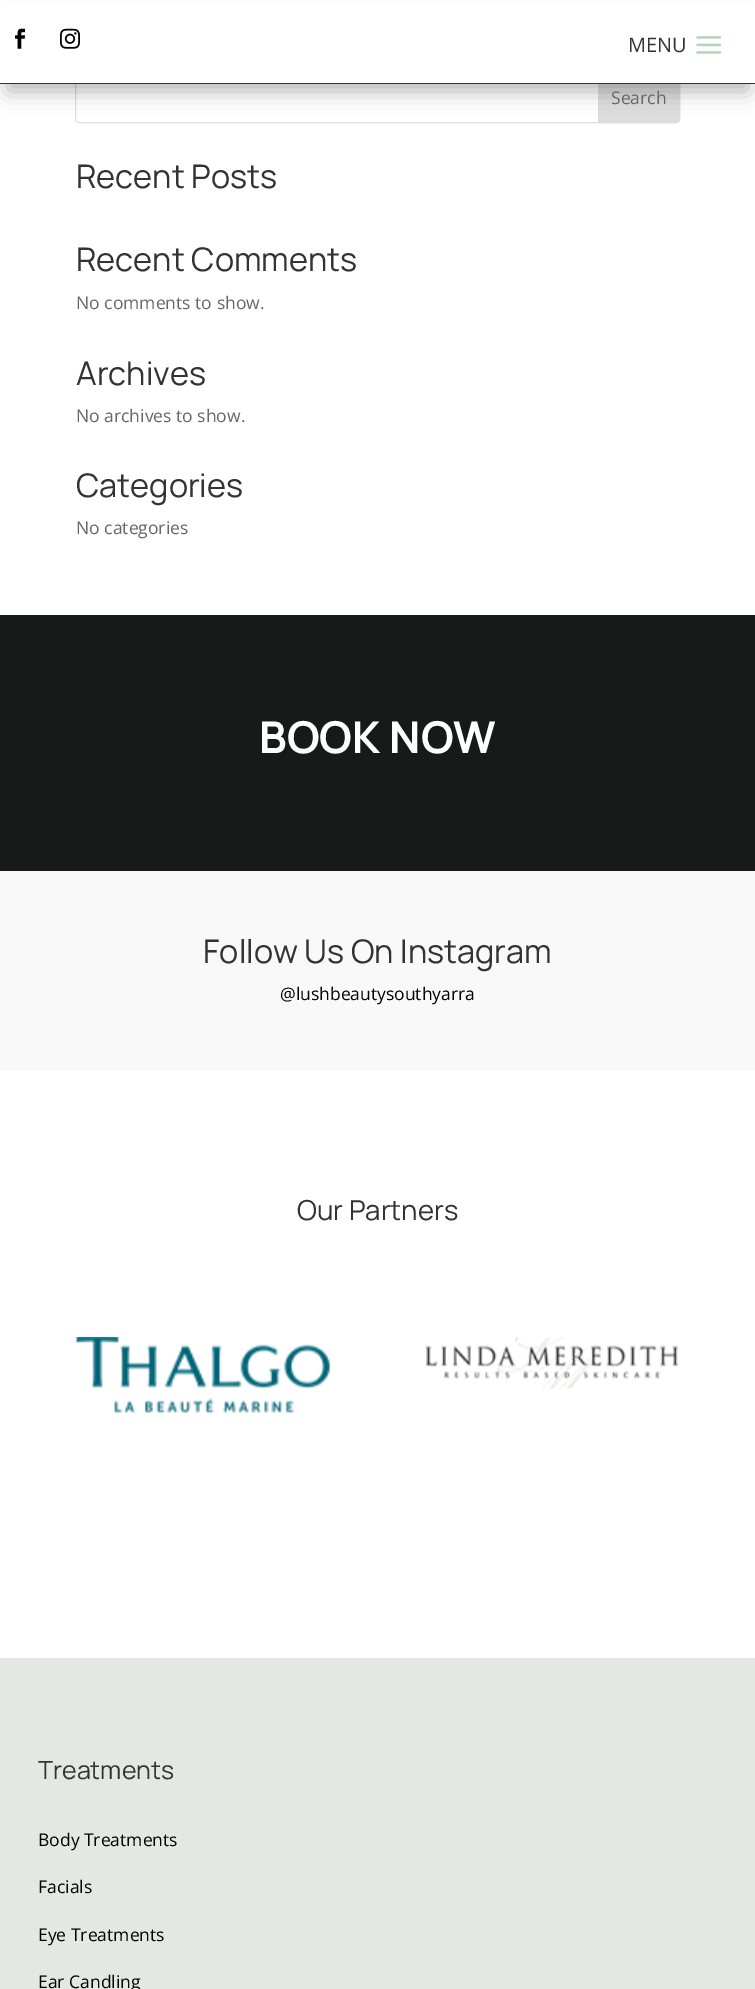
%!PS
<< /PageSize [755 1989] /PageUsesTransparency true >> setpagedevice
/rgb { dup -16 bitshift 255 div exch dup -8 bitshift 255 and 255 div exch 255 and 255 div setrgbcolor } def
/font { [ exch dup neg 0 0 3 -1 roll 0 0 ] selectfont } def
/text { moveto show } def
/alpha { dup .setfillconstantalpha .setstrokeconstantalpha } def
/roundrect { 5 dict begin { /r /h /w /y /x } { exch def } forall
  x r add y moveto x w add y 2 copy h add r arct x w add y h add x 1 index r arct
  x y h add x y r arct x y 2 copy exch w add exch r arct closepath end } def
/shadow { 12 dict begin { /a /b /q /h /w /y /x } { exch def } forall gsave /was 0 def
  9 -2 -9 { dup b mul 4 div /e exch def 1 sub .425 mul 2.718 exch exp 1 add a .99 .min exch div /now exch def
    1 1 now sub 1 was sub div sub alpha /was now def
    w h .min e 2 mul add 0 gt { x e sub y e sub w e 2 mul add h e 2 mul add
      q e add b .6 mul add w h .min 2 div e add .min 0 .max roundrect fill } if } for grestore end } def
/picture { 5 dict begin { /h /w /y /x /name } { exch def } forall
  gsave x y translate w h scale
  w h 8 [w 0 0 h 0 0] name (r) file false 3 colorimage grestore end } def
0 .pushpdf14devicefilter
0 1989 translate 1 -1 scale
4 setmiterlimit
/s1 { /OpenSans-Regular 20 font 16#333333 rgb } def
/s2 { /OpenSans-Regular 17.5 font 16#666666 rgb } def
/s3 { /Manrope-Regular 32.5 font 16#333333 rgb } def
/s4 { /Manrope-Bold 43.75 font 16#FFFFFF rgb } def
/s5 { /OpenSans-Regular 17.5 font 16#000000 rgb } def
/s6 { /Manrope-Regular 27.5 font 16#333333 rgb } def
/s7 { /Manrope-Regular 25 font 16#333333 rgb } def
16#FFFFFF rgb
0 0 755 1989 rectfill
16#DDDDDD rgb
75.5 73.5 604 49 3.5 roundrect stroke
598.5 73.5 moveto 676 73.5 lineto 678 73.5 679.5 75 679.5 77 curveto 679.5 119 lineto 679.5 121 678 122.5 676 122.5 curveto 598.5 122.5 lineto closepath gsave fill grestore
stroke
16#000000 rgb
8 23 740 68 0 11 0.3 shadow
16#FFFFFF rgb
0 3 755 80 rectfill
16#333333 rgb
0 83 755 1 rectfill
(pic1.raw) 15 28 10 21 picture
(pic2.raw) 60 28 20 21 picture
s1
(MENU) 628 52 text
(pic3.raw) 696 36 26 18 picture
s2
(Search) 611 104 text
s3
(Recent Posts) 76 188 text
(Recent Comments) 76 271 text
s2
(No comments to show.) 76 309 text
s3
(Archives) 76 385 text
s2
(No archives to show.) 76 422 text
s3
(Categories) 76 497 text
s2
(No categories) 76 534 text
16#161B19 rgb
0 615 755 256 rectfill
s4
(BOOK NOW) 259 753 text
16#F9F9F9 rgb
0 871 755 200 rectfill
s3
(Follow Us On Instagram) 203 963 text
s5
(@lushbeautysouthyarra) 280 1000 text
s6
(Our Partners) 297 1220 text
(pic4.raw) 75 1337 256 77 picture
(pic5.raw) 425 1337 254 52 picture
16#E3E8E5 rgb
0 1658 755 331 rectfill
s7
(Treatments) 38 1779 text
s5
(Body Treatments) 38 1846 text
(Facials) 38 1893 text
(Eye Treatments) 38 1941 text
(Ear Candling) 38 1988 text
.poppdf14devicefilter showpage
